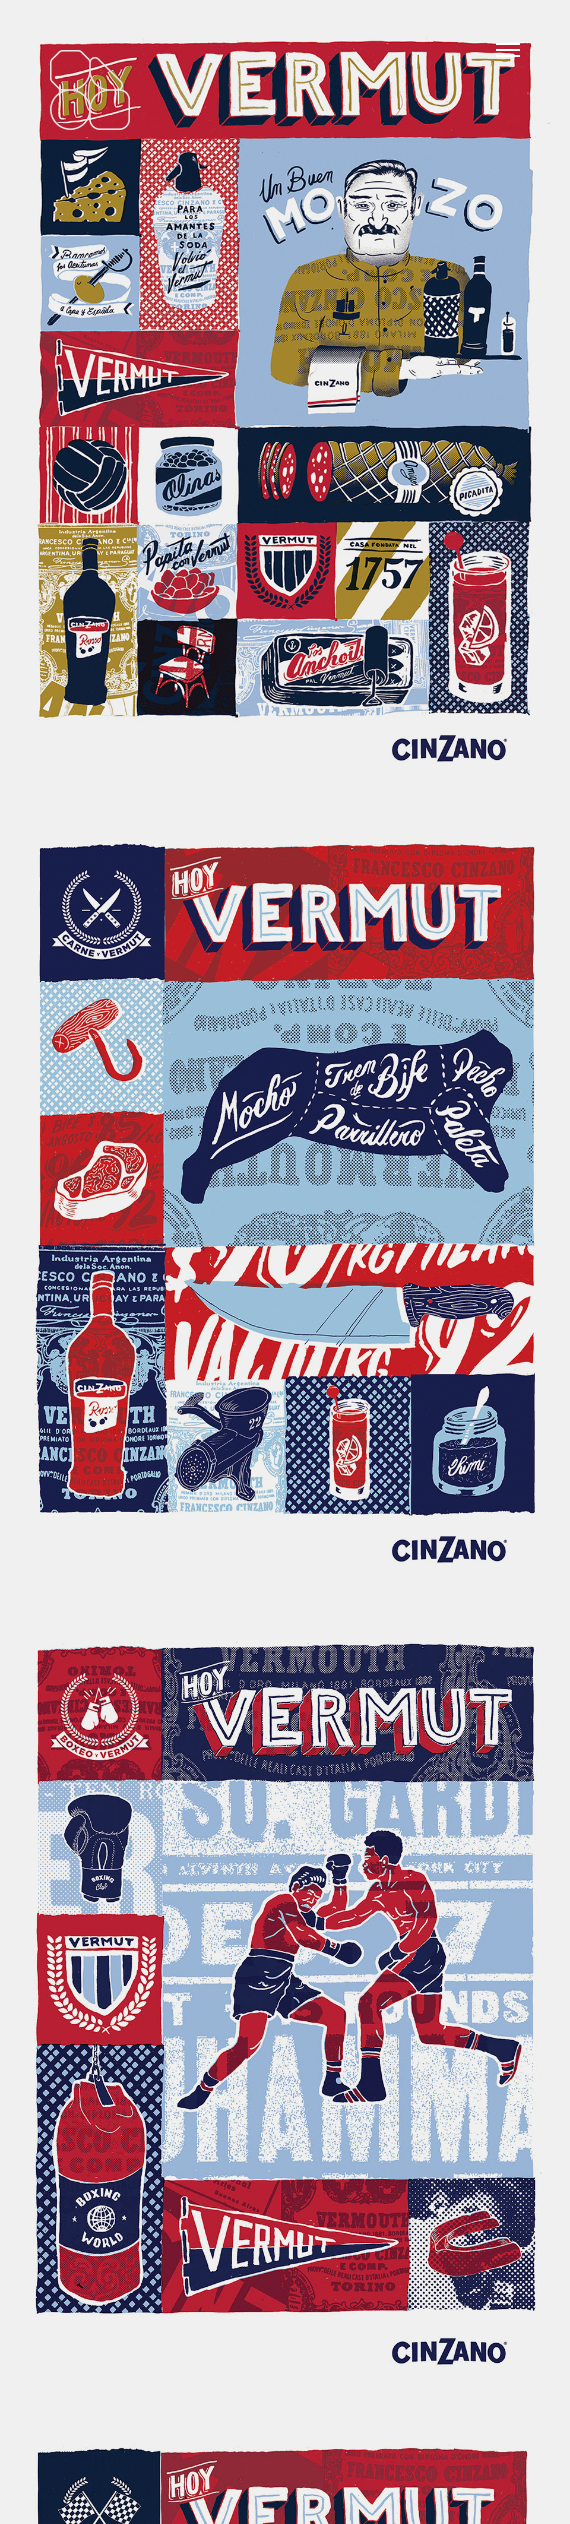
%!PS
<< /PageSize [570 2524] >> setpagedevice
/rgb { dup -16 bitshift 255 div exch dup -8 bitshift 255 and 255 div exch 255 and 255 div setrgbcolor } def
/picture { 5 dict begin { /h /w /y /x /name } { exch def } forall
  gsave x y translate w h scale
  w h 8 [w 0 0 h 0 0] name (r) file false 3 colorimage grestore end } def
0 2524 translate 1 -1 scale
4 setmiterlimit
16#FFFFFF rgb
0 0 570 2524 rectfill
(pic1.raw) 0 0 570 802 picture
(pic2.raw) 0 802 570 801 picture
(pic3.raw) 0 1603 570 802 picture
(pic4.raw) 0 2405 570 119 picture
(pic5.raw) 50 50 80 80 picture
496 49 24 2 rectfill
496 43 24 2 rectfill
496 55 24 2 rectfill
showpage
